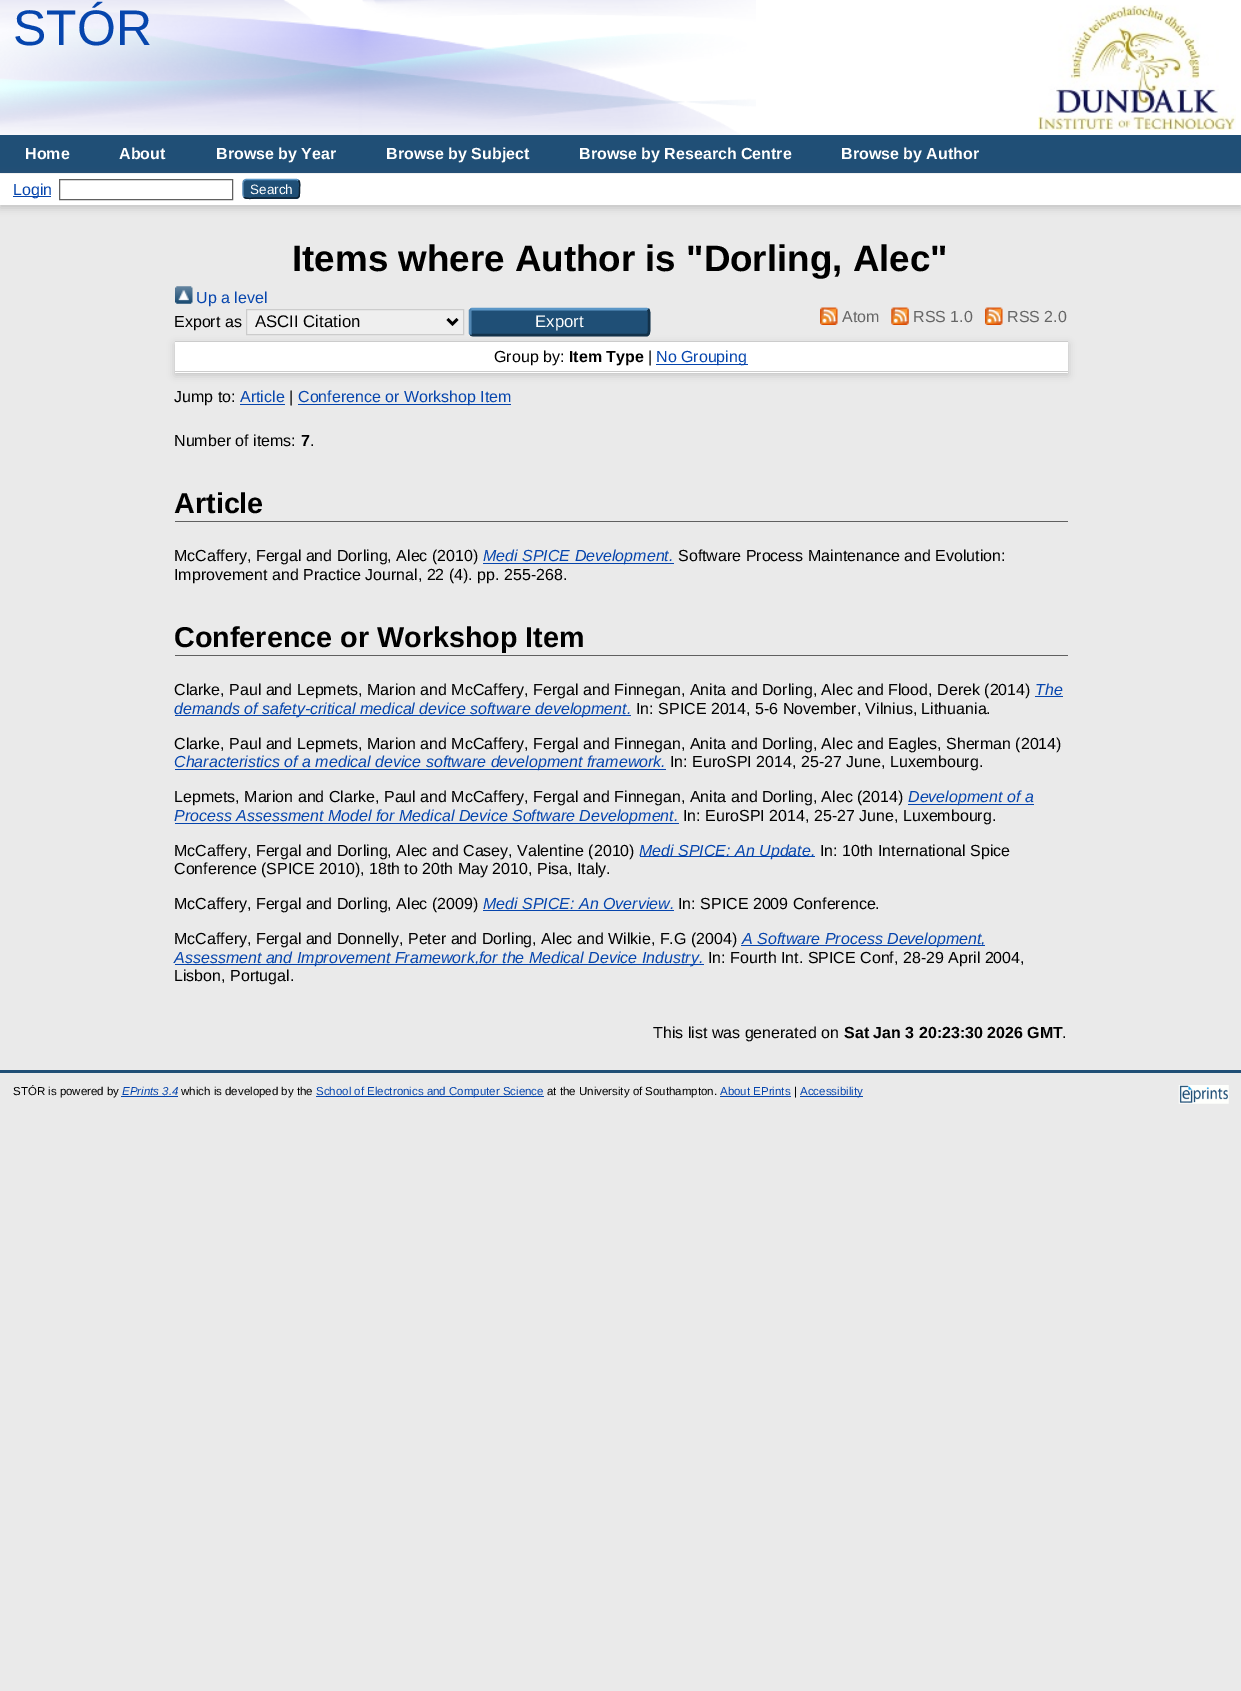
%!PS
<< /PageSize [1241 1691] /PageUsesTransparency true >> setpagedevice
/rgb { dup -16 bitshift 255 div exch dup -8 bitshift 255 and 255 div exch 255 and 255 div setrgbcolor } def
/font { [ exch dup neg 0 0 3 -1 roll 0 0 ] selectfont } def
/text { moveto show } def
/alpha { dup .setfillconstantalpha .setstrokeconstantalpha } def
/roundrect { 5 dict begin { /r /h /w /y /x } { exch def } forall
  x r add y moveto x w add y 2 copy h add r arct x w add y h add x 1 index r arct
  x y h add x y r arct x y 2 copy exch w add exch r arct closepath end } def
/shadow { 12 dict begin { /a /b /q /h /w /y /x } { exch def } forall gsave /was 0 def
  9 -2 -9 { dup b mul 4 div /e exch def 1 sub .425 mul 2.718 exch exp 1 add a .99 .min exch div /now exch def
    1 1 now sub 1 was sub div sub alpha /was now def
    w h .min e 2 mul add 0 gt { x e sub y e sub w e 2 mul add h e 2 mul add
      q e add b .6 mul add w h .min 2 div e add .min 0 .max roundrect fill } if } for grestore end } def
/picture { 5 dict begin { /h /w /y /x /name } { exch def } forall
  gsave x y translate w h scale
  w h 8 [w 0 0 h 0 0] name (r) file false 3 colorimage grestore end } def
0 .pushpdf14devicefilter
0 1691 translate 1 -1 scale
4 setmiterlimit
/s1 { /LiberationSans-Regular 50 font 16#0645AD rgb } def
/s2 { /LiberationSans-Bold 16 font 16#FFFFFF rgb } def
/s3 { /LiberationSans-Regular 16 font 16#0645AD rgb } def
/s4 { /LiberationSans-Regular 13.5 font 16#FFFFFF rgb } def
/s5 { /LiberationSans-Bold 36.75 font 16#000000 rgb } def
/s6 { /LiberationSans-Regular 16 font 16#000000 rgb } def
/s7 { /LiberationSans-Regular 16.75 font 16#000000 rgb } def
/s8 { /LiberationSans-Regular 16.75 font 16#FFFFFF rgb } def
/s9 { /LiberationSans-Regular 16 font 16#666666 rgb } def
/s10 { /LiberationSans-Bold 16 font 16#000000 rgb } def
/s11 { /LiberationSans-Bold 28.75 font 16#000000 rgb } def
/s12 { /LiberationSans-Italic 16 font 16#0645AD rgb } def
/s13 { /LiberationSans-Regular 11.5 font 16#000000 rgb } def
/s14 { /LiberationSans-Italic 11.5 font 16#0645AD rgb } def
/s15 { /LiberationSans-Regular 11.5 font 16#0645AD rgb } def
16#EAEAEA rgb
0 0 1241 1691 rectfill
16#FFFFFF rgb
0 0 1241 135 rectfill
(pic1.raw) 0 0 756 135 picture
s1
(STÓR) 13 45 text
(pic2.raw) 1038 5 198 125 picture
16#204F76 rgb
0 135 1241 38 rectfill
16#FFFFFF rgb
0 173 1241 1 rectfill
s2
(Home) 25 159 text
(About) 119 159 text
(Browse by Year) 216 159 text
(Browse by Subject) 386 159 text
(Browse by Research Centre) 579 159 text
(Browse by Author) 841 159 text
16#646464 rgb
0 176 1241 32 0 4 0.3 shadow
16#FFFFFF rgb
0 174 1241 31 rectfill
16#0645AD rgb
13 196 38 1 rectfill
s3
(Login) 13 195 text
16#606060 rgb
59.5 179.5 173 20 rectstroke
16#1F4F76 rgb
243 179 57 20 4 roundrect fill
16#5B97C7 rgb
1.2 setlinewidth
244 180.5 moveto 246 179.5 lineto 296.5 179.5 lineto 298.5 180.5 lineto stroke
16#0D2131 rgb
298.5 180.5 moveto 300.5 182.5 299.5 186.5 299.5 189 curveto 299.5 199.5 299.5 198 288 198 curveto 254.5 198 lineto 254 198 246.5 199.5 244 197 curveto stroke
16#5287B3 rgb
244 197 moveto 242.5 195.5 243 191 243 189 curveto 243 186.5 242.5 182 244 180.5 curveto stroke
s4
(Search) 250 194 text
s5
(Items where Author is "Dorling, Alec") 292 271 text
(pic3.raw) 175 286 18 18 picture
s3
(Up a level) 196 303 text
s6
(Export as) 174 327 text
16#646464 rgb
175 344 893 31 0 4 0.3 shadow
16#EFEFEF rgb
246.5 309.5 moveto 463.5 309.5 lineto 463.5 334.5 lineto 246.5 334.5 lineto closepath gsave fill grestore
16#CCCCCC rgb
1 setlinewidth
stroke
16#000000 rgb
2.5 setlinewidth
447.5 319 moveto 452.5 324 lineto 457.5 319 lineto stroke
s7
(ASCII Citation) 255 327 text
16#1F4F76 rgb
469 308 181 28 4 roundrect fill
16#5B97C7 rgb
470.5 309.5 moveto 472.5 309 lineto 646 309 lineto 648 309.5 lineto stroke
16#13324A rgb
648 309.5 moveto 650 311 649 322.5 649 325.5 curveto 649 327.5 650 334 647 335 curveto 472.5 335 lineto 470.5 334.5 lineto stroke
16#5287B3 rgb
470.5 334.5 moveto 470.5 334 470 333 470 332.5 curveto 470 311 lineto 470 310.5 470.5 310 470.5 309.5 curveto stroke
s8
(Export) 535 327 text
(pic4.raw) 820 307 18 18 picture
s9
(Atom) 842 322 text
(pic5.raw) 891 307 18 18 picture
(RSS 1.0) 913 322 text
(pic4.raw) 985 307 18 18 picture
(RSS 2.0) 1007 322 text
16#FFFFFF rgb
175 342 893 31 rectfill
16#CCCCCC rgb
175 341 893 1 rectfill
175 371 893 1 rectfill
s6
(Group by:) 494 362 text
s10
(Item Type) 569 362 text
s6
(|) 648 362 text
16#0645AD rgb
656 364 92 1 rectfill
(No Grouping) 656 362 text
s6
(Jump to:) 174 402 text
s3
(Article) 240 402 text
240 404 45 1 rectfill
s6
(|) 289 402 text
16#0645AD rgb
298 404 213 1 rectfill
(Conference or Workshop Item) 298 402 text
s6
(Number of items:) 174 446 text
s10
(7) 301 446 text
s6
(.) 310 446 text
16#606060 rgb
175 521 893 1 rectfill
s11
(Article) 174 513 text
s6
(McCaffery, Fergal and Dorling, Alec \(2010\)) 174 561 text
16#0645AD rgb
483 563 191 1 rectfill
s12
(Medi SPICE Development.) 483 561 text
s6
(Software Process Maintenance and Evolution:) 678 561 text
(Improvement and Practice Journal, 22 \(4\). pp. 255-268.) 174 580 text
16#606060 rgb
175 655 893 1 rectfill
s11
(Conference or Workshop Item) 174 647 text
s6
(Clarke, Paul and Lepmets, Marion and McCaffery, Fergal and Finnegan, Anita and Dorling, Alec and Flood, Derek \(2014\)) 174 695 text
s12
(The) 1035 695 text
1035 696 28 1 rectfill
175 715 456 1 rectfill
(demands of safety-critical medical device software development.) 174 714 text
s6
(In: SPICE 2014, 5-6 November, Vilnius, Lithuania.) 636 714 text
(Clarke, Paul and Lepmets, Marion and McCaffery, Fergal and Finnegan, Anita and Dorling, Alec and Eagles, Sherman \(2014\)) 174 749 text
16#0645AD rgb
175 769 491 1 rectfill
s12
(Characteristics of a medical device software development framework.) 174 767 text
s6
(In: EuroSPI 2014, 25-27 June, Luxembourg.) 670 767 text
(Lepmets, Marion and Clarke, Paul and McCaffery, Fergal and Finnegan, Anita and Dorling, Alec \(2014\)) 174 802 text
16#0645AD rgb
908 804 126 1 rectfill
s12
(Development of a) 908 802 text
175 823 504 1 rectfill
(Process Assessment Model for Medical Device Software Development.) 174 821 text
s6
(In: EuroSPI 2014, 25-27 June, Luxembourg.) 683 821 text
(McCaffery, Fergal and Dorling, Alec and Casey, Valentine \(2010\)) 174 856 text
16#0645AD rgb
640 856 175 1 rectfill
s12
(Medi SPICE: An Update.) 639 856 text
s6
(In: 10th International Spice) 820 856 text
(Conference \(SPICE 2010\), 18th to 20th May 2010, Pisa, Italy.) 174 874 text
(McCaffery, Fergal and Dorling, Alec \(2009\)) 174 909 text
s12
(Medi SPICE: An Overview.) 483 909 text
483 910 191 1 rectfill
s6
(In: SPICE 2009 Conference.) 678 909 text
(McCaffery, Fergal and Donnelly, Peter and Dorling, Alec and Wilkie, F.G \(2004\)) 174 944 text
16#0645AD rgb
741 945 244 1 rectfill
s12
(A Software Process Development,) 742 944 text
175 964 529 1 rectfill
(Assessment and Improvement Framework,for the Medical Device Industry.) 174 963 text
s6
(In: Fourth Int. SPICE Conf, 28-29 April 2004,) 708 963 text
(Lisbon, Portugal.) 174 981 text
(This list was generated on) 653 1038 text
s10
(Sat Jan 3 20:23:30 2026 GMT) 844 1038 text
s6
(.) 1062 1038 text
16#204F76 rgb
0 1070 1241 3 rectfill
s13
(STÓR is powered by) 13 1095 text
s14
(EPrints 3.4) 122 1095 text
121 1096 57 1 rectfill
s13
(which is developed by the) 181 1095 text
16#0645AD rgb
316 1096 228 1 rectfill
(School of Electronics and Computer Science) 316 1095 text
s13
(at the University of Southampton.) 547 1095 text
s15
(About EPrints) 720 1095 text
720 1096 71 1 rectfill
s13
(|) 794 1095 text
16#0645AD rgb
800 1096 63 1 rectfill
(Accessibility) 800 1095 text
(pic6.raw) 1178 1085 51 19 picture
.poppdf14devicefilter showpage
